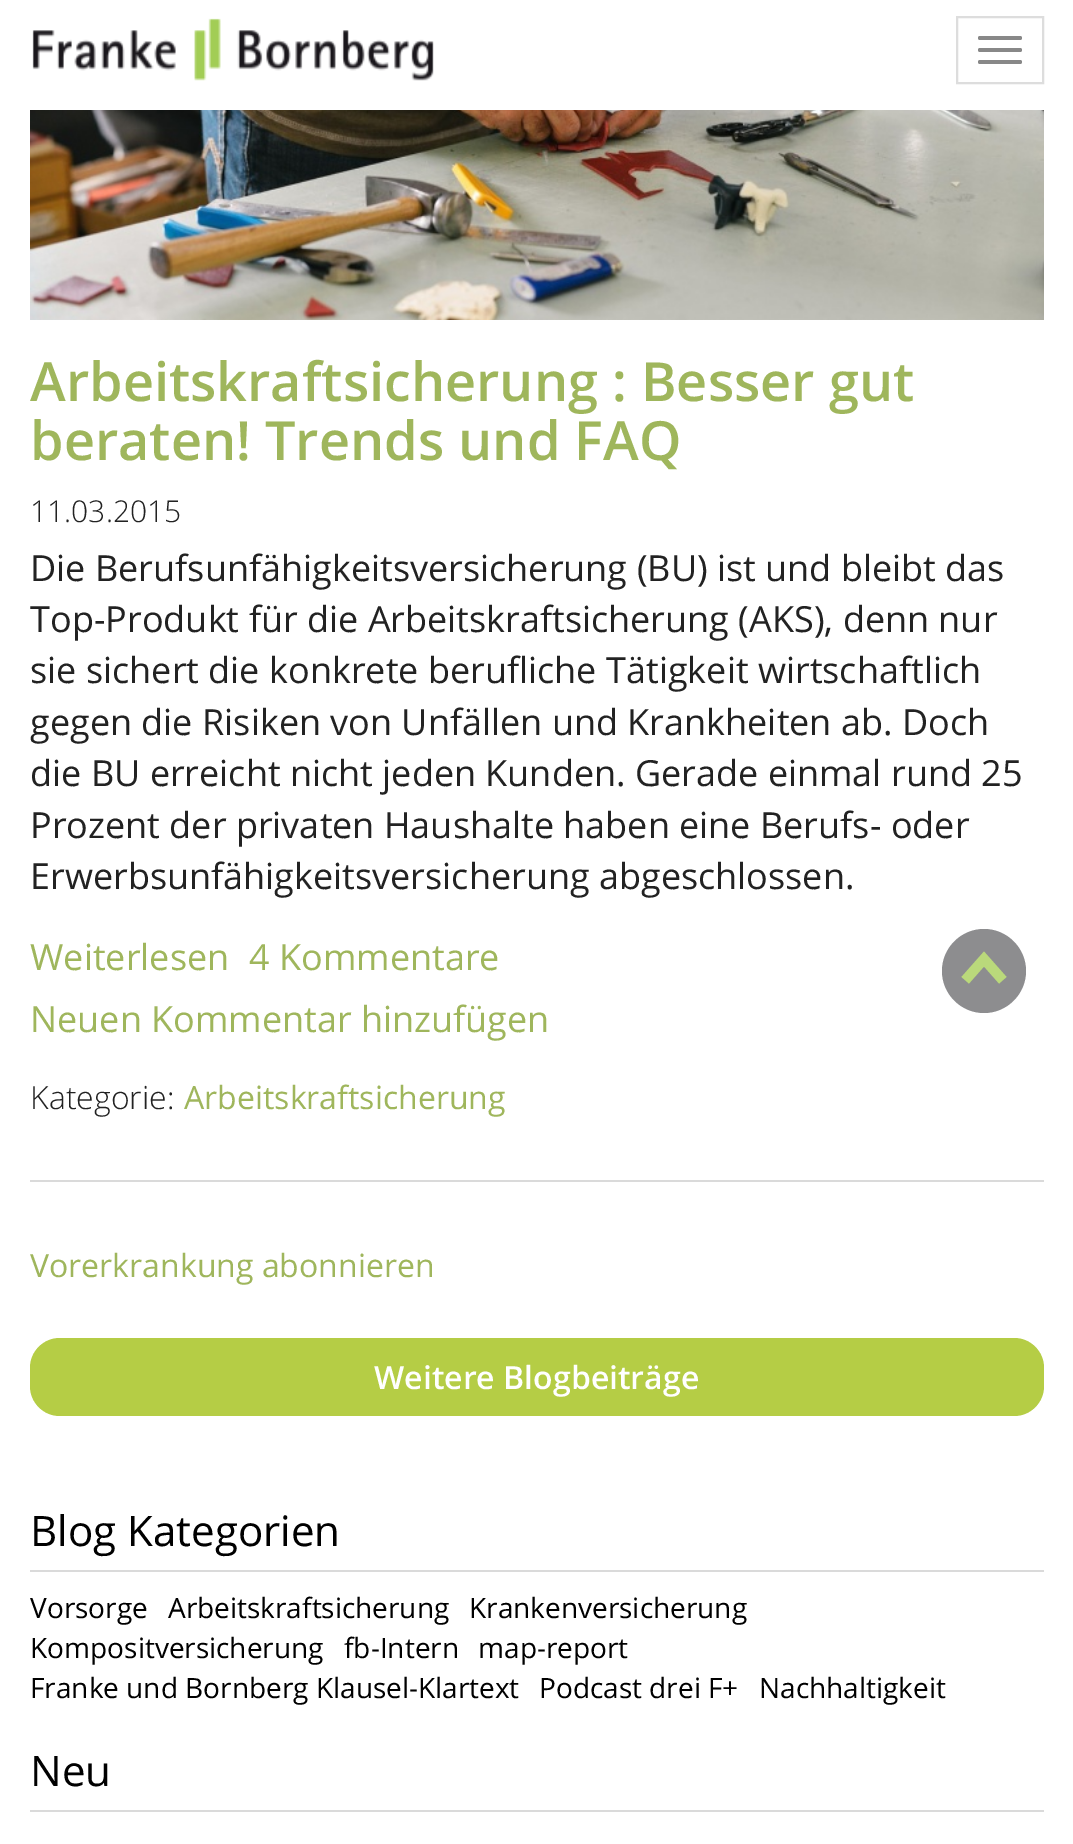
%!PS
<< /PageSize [1073 1844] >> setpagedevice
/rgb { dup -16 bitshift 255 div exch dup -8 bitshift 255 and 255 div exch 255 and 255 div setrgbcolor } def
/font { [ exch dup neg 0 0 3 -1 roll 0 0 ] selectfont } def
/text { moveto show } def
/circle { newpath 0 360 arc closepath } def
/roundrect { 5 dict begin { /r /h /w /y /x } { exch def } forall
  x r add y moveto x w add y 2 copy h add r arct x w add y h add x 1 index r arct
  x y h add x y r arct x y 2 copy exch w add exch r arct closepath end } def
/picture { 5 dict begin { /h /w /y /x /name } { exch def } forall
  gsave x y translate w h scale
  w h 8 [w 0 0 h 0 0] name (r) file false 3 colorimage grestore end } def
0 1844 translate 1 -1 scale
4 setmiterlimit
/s1 { /OpenSans-SemiBold 54 font 16#9FB65C rgb } def
/s2 { /OpenSans-Light 30 font 16#222222 rgb } def
/s3 { /OpenSans-Regular 36 font 16#222222 rgb } def
/s4 { /OpenSans-Regular 36 font 16#9FB65C rgb } def
/s5 { /OpenSans-Light 32 font 16#222222 rgb } def
/s6 { /OpenSans-Regular 32 font 16#9FB65C rgb } def
/s7 { /OpenSans-SemiBold 32 font 16#FFFFFF rgb } def
/s8 { /OpenSans-Regular 42 font 16#000000 rgb } def
/s9 { /OpenSans-Regular 28 font 16#000000 rgb } def
16#FFFFFF rgb
0 0 1073 1844 rectfill
(pic1.raw) 32 18 402 63 picture
16#DDDDDD rgb
2 setlinewidth
957 17 86 66 rectstroke
16#888888 rgb
978 36 44 4 2 roundrect fill
978 48 44 4 2 roundrect fill
978 60 44 4 2 roundrect fill
16#DADADA rgb
30 1180 1014 2 rectfill
(pic2.raw) 30 110 1014 210 picture
s1
(Arbeitskraftsicherung : Besser gut) 30 401 text
(beraten! Trends und FAQ) 30 460 text
s2
(11.03.2015) 30 522 text
s3
(Die Berufsunfähigkeitsversicherung \(BU\) ist und bleibt das) 30 581 text
(Top-Produkt für die Arbeitskraftsicherung \(AKS\), denn nur) 30 632 text
(sie sichert die konkrete berufliche Tätigkeit wirtschaftlich) 30 683 text
(gegen die Risiken von Unfällen und Krankheiten ab. Doch) 30 735 text
(die BU erreicht nicht jeden Kunden. Gerade einmal rund 25) 30 786 text
(Prozent der privaten Haushalte haben eine Berufs- oder) 30 838 text
(Erwerbsunfähigkeitsversicherung abgeschlossen.) 30 889 text
s4
(Weiterlesen) 30 970 text
(4 Kommentare) 249 970 text
(Neuen Kommentar hinzufügen) 30 1032 text
s5
(Kategorie:) 30 1109 text
s6
(Arbeitskraftsicherung) 184 1109 text
(Vorerkrankung abonnieren) 30 1277 text
16#B5CD45 rgb
30 1338 1014 78 30 roundrect fill
s7
(Weitere Blogbeiträge) 374 1389 text
16#DADADA rgb
30 1570 1014 2 rectfill
s8
(Blog Kategorien) 30 1546 text
s9
(Vorsorge) 30 1618 text
(Arbeitskraftsicherung) 168 1618 text
(Krankenversicherung) 469 1618 text
(Kompositversicherung) 30 1658 text
(fb-Intern) 344 1658 text
(map-report) 478 1658 text
(Franke und Bornberg Klausel-Klartext) 30 1698 text
(Podcast drei F+) 539 1698 text
(Nachhaltigkeit) 759 1698 text
16#DADADA rgb
30 1810 1014 2 rectfill
s8
(Neu) 30 1786 text
16#BAD97B rgb
984 971 25.5 circle fill
16#8D8D8F rgb
1026 971 moveto 1026 948 1007 929 984 929 curveto 961 929 942 948 942 971 curveto 942 994 961 1013 984 1013 curveto 1007 1013 1026 994 1026 971 curveto closepath 969 984 moveto 961 977 lineto 984 951 lineto 1007 977 lineto 999 984 lineto 984 967 lineto closepath fill
showpage
